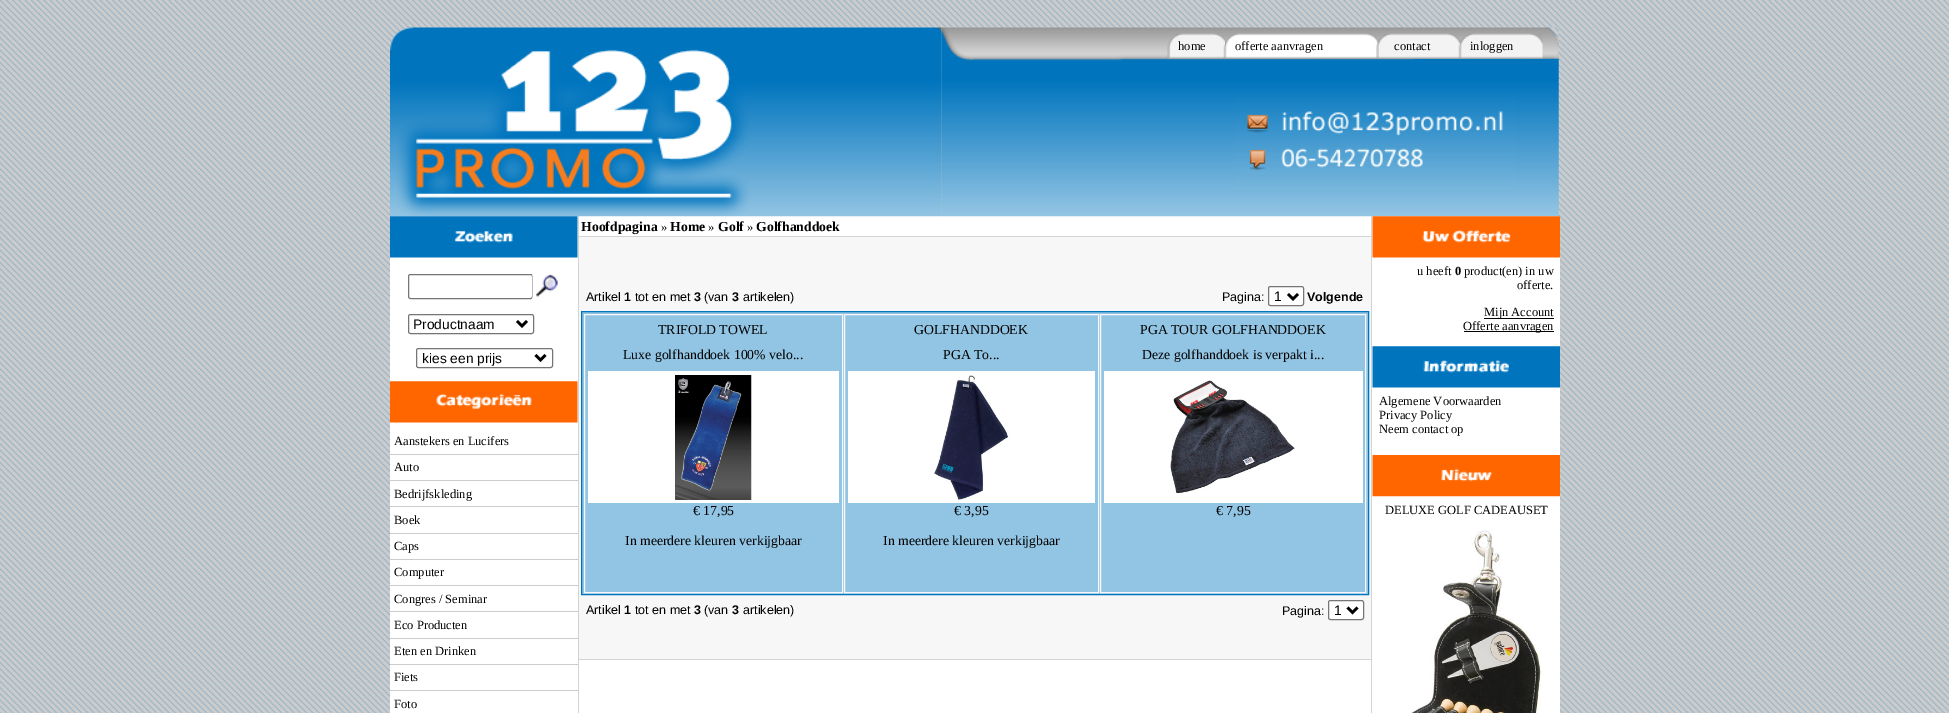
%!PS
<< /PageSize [1949 713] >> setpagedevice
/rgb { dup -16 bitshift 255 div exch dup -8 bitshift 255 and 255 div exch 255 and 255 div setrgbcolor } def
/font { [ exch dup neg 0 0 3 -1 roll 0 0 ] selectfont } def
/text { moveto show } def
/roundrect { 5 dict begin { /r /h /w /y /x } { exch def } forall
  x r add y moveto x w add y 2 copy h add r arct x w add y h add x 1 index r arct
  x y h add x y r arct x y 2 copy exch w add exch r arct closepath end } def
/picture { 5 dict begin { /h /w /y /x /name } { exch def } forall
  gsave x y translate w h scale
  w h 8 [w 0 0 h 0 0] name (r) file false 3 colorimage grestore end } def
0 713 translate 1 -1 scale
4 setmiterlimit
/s1 { /LiberationSerif-Regular 12.5 font 16#000000 rgb } def
/s2 { /LiberationSans-Regular 13.75 font 16#000000 rgb } def
/s3 { /LiberationSerif-Bold 13.75 font 16#000000 rgb } def
/s4 { /LiberationSans-Regular 12.5 font 16#000000 rgb } def
/s5 { /LiberationSans-Bold 12.5 font 16#000000 rgb } def
/s6 { /LiberationSerif-Regular 13.75 font 16#000000 rgb } def
/s7 { /LiberationSerif-Bold 12.5 font 16#000000 rgb } def
16#FFFFFF rgb
0 0 1949 713 rectfill
(pic1.raw) 0 0 1949 713 picture
390 216 1170 497 rectfill
16#D3D3D3 rgb
578 216 1 497 rectfill
(pic2.raw) 390 27 552 190 picture
1371 216 1 497 rectfill
(pic3.raw) 941 27 618 190 picture
(pic4.raw) 1167 33 58 26 picture
s1
(home) 1178 50 text
(pic5.raw) 1225 33 153 26 picture
(offerte aanvragen) 1235 50 text
(pic6.raw) 1377 33 83 26 picture
(contact) 1394 50 text
(pic7.raw) 1460 33 83 26 picture
(inloggen) 1470 50 text
(pic8.raw) 390 216 188 42 picture
16#767676 rgb
408.5 274.5 124 24 2 roundrect stroke
(pic9.raw) 532 274 26 25 picture
408.5 314.5 125 19 2 roundrect stroke
16#000000 rgb
2.5 setlinewidth
517 321 moveto 522 326 lineto 527 321 lineto stroke
s2
(Productnaam) 413 329 text
16#767676 rgb
1 setlinewidth
416.5 348.5 136 19 2 roundrect stroke
16#000000 rgb
2.5 setlinewidth
535.5 355 moveto 540.5 360 lineto 545.5 355 lineto stroke
gsave
423 349 108 17 rectclip
(kies een prijs) 422 363 text
grestore
(pic10.raw) 390 381 188 42 picture
16#CCCCCC rgb
390 454 188 1 rectfill
s1
(Aanstekers en Lucifers) 394 445 text
16#CCCCCC rgb
390 480 188 1 rectfill
s1
(Auto) 394 471 text
16#CCCCCC rgb
390 506 188 1 rectfill
s1
(Bedrijfskleding) 394 498 text
16#CCCCCC rgb
390 533 188 1 rectfill
s1
(Boek) 394 524 text
16#CCCCCC rgb
390 559 188 1 rectfill
s1
(Caps) 394 550 text
16#CCCCCC rgb
390 585 188 1 rectfill
s1
(Computer) 394 576 text
16#CCCCCC rgb
390 611 188 1 rectfill
s1
(Congres / Seminar) 394 603 text
16#CCCCCC rgb
390 638 188 1 rectfill
s1
(Eco Producten) 394 629 text
16#CCCCCC rgb
390 664 188 1 rectfill
s1
(Eten en Drinken) 394 655 text
16#CCCCCC rgb
390 690 188 1 rectfill
s1
(Fiets) 394 681 text
(Foto) 394 708 text
s3
(Hoofdpagina) 581 231 text
s1
(») 661 231 text
s3
(Home) 670 231 text
s1
(») 708 231 text
s3
(Golf) 718 231 text
s1
(») 747 231 text
s3
(Golfhanddoek) 756 231 text
16#F7F7F7 rgb
579 237 792 422 rectfill
16#D3D3D3 rgb
579 236 792 1 rectfill
579 659 792 1 rectfill
s4
(Artikel) 586 301 text
s5
(1) 624 301 text
s4
(tot en met) 635 301 text
s5
(3) 694 301 text
s4
(\(van) 704 301 text
s5
(3) 732 301 text
s4
(artikelen\)) 743 301 text
(Pagina:) 1222 301 text
16#FFFFFF rgb
1268.5 286.5 35 19 2 roundrect gsave fill grestore
16#767676 rgb
1 setlinewidth
stroke
16#000000 rgb
2.5 setlinewidth
1288 294 moveto 1293 299 lineto 1298 294 lineto stroke
s2
(1) 1274 301 text
s5
(Volgende) 1307 301 text
16#92C4E3 rgb
581.5 311.5 moveto 1368.5 311.5 lineto 1368.5 594.5 lineto 581.5 594.5 lineto closepath gsave fill grestore
16#0075BE rgb
1 setlinewidth
stroke
16#F7F7F7 rgb
584.5 314.5 258 278 rectstroke
s6
(TRIFOLD TOWEL) 658 334 text
(Luxe golfhanddoek 100% velo...) 623 359 text
16#FFFFFF rgb
588 371 251 132 rectfill
(pic11.raw) 675 375 77 125 picture
s6
(€ 17,95) 693 515 text
(In meerdere kleuren verkijgbaar) 625 545 text
16#F7F7F7 rgb
844.5 314.5 254 278 rectstroke
s6
(GOLFHANDDOEK) 914 334 text
(PGA To...) 943 359 text
16#FFFFFF rgb
848 371 247 132 rectfill
(pic12.raw) 934 375 75 125 picture
s6
(€ 3,95) 954 515 text
(In meerdere kleuren verkijgbaar) 883 545 text
16#F7F7F7 rgb
1100.5 314.5 265 278 rectstroke
s6
(PGA TOUR GOLFHANDDOEK) 1140 334 text
(Deze golfhanddoek is verpakt i...) 1142 359 text
16#FFFFFF rgb
1104 371 259 132 rectfill
(pic13.raw) 1170 380 125 114 picture
s6
(€ 7,95) 1216 515 text
s4
(Artikel) 586 614 text
s5
(1) 624 614 text
s4
(tot en met) 635 614 text
s5
(3) 694 614 text
s4
(\(van) 704 614 text
s5
(3) 732 614 text
s4
(artikelen\)) 743 614 text
(Pagina:) 1282 615 text
16#FFFFFF rgb
1328.5 600.5 35 19 2 roundrect gsave fill grestore
16#767676 rgb
stroke
16#000000 rgb
2.5 setlinewidth
1347.5 607.5 moveto 1352.5 612.5 lineto 1357.5 607.5 lineto stroke
s2
(1) 1334 615 text
(pic14.raw) 1372 216 188 42 picture
s1
(u heeft) 1417 275 text
s7
(0) 1455 275 text
s1
(product\(en\) in uw) 1464 275 text
(offerte.) 1517 289 text
1484 318 70 1 rectfill
(Mijn Account) 1484 316 text
1464 331 90 1 rectfill
(Offerte aanvragen) 1463 330 text
(pic15.raw) 1372 346 188 42 picture
(Algemene Voorwaarden) 1379 405 text
(Privacy Policy) 1379 419 text
(Neem contact op) 1379 433 text
(pic16.raw) 1372 455 188 42 picture
(DELUXE GOLF CADEAUSET) 1385 514 text
(pic17.raw) 1411 530 130 183 picture
showpage
